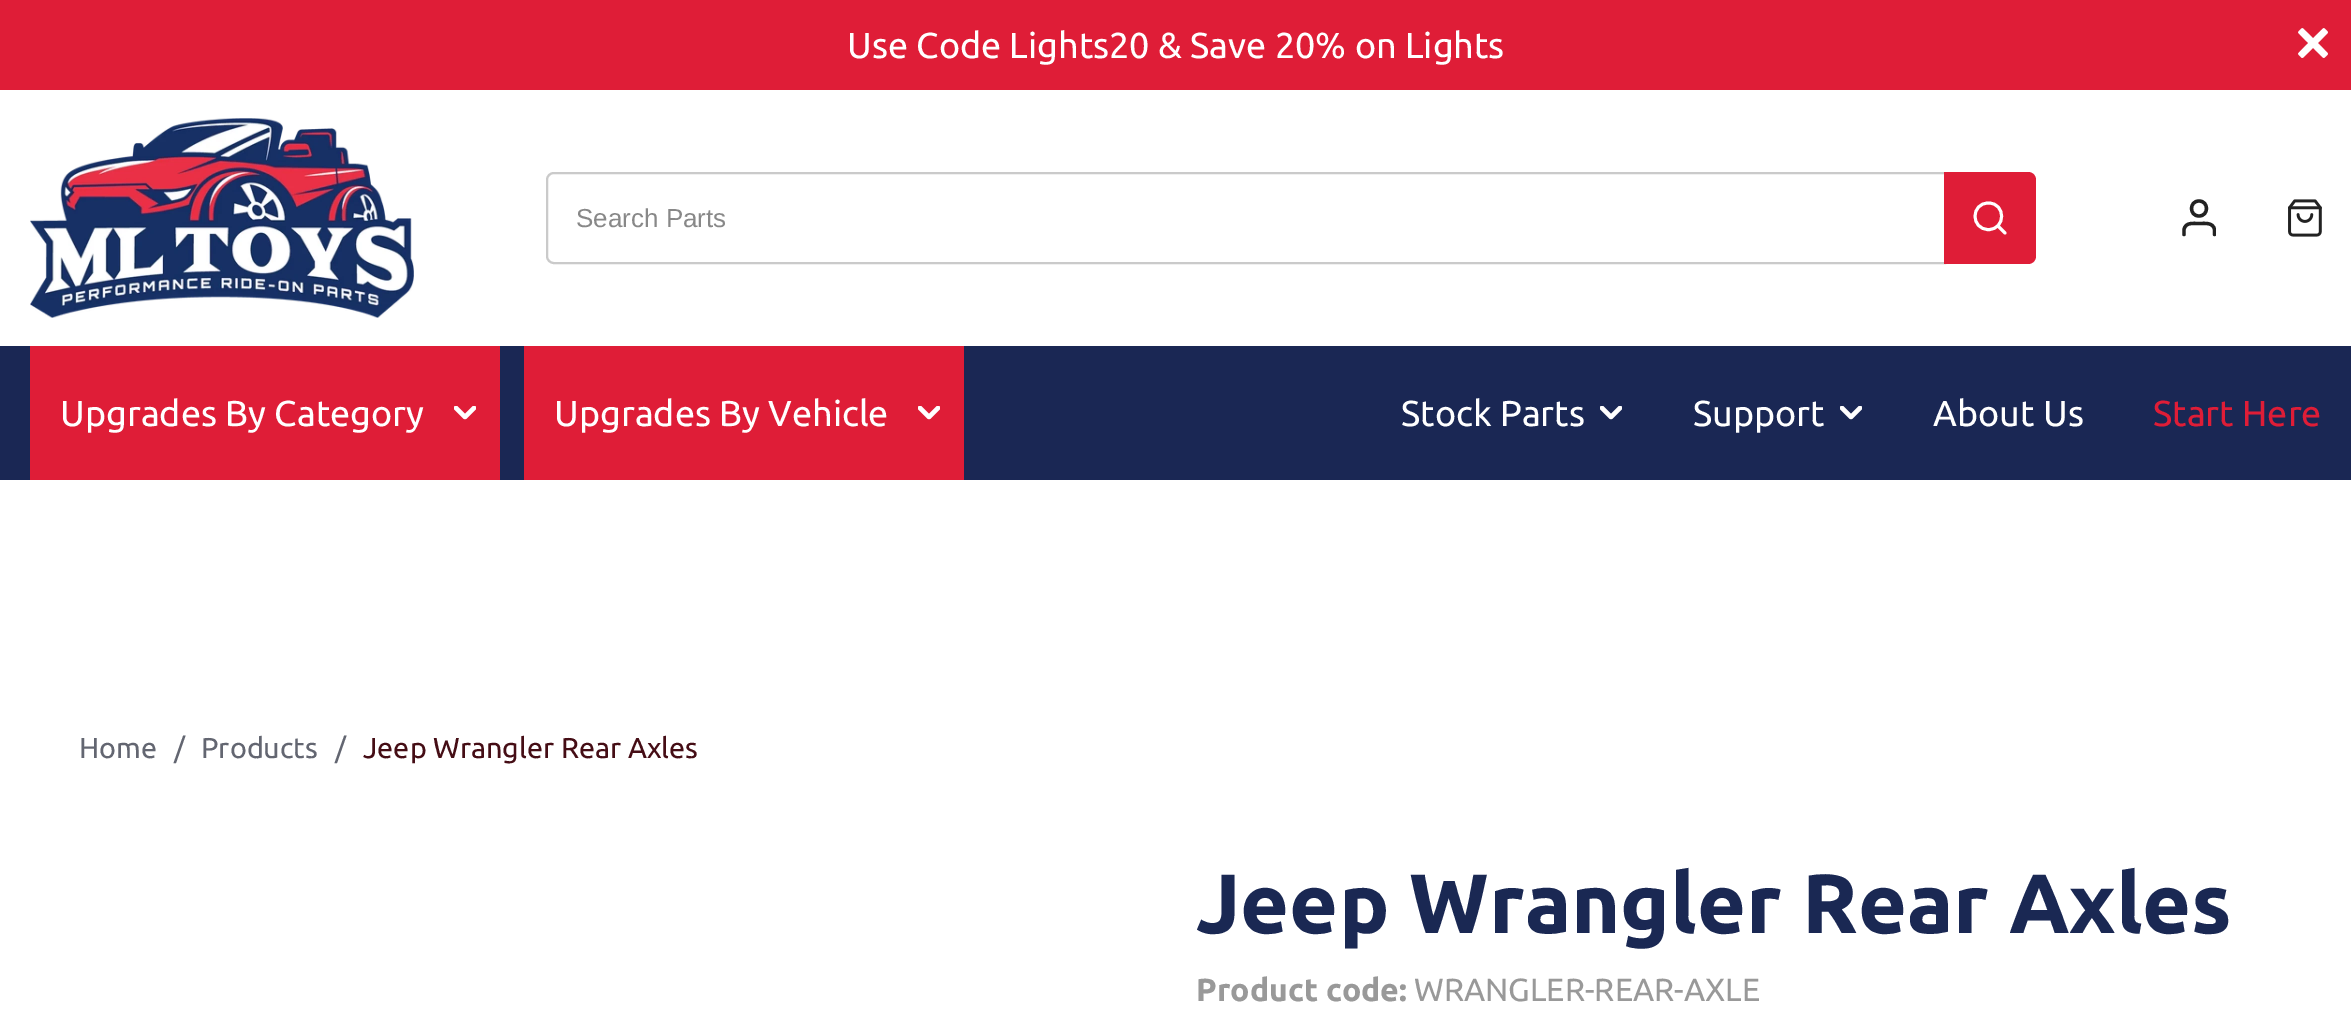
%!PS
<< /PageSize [2351 1020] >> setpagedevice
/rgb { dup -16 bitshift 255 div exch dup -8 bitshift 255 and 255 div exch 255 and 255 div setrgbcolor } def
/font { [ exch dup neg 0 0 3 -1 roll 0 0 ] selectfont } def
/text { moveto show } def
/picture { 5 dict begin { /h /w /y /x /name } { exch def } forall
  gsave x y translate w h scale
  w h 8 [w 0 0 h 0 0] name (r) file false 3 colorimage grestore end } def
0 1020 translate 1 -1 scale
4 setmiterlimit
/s1 { /Ubuntu-Regular 36 font 16#FFFFFF rgb } def
/s2 { /LiberationSans-Regular 26 font 16#888888 rgb } def
/s3 { /Ubuntu-Regular 36 font 16#DF1D37 rgb } def
/s4 { /Ubuntu-Regular 28.75 font 16#636671 rgb } def
/s5 { /Ubuntu-Regular 28.75 font 16#450D15 rgb } def
/s6 { /Ubuntu-Bold 84 font 16#1A2853 rgb } def
/s7 { /Ubuntu-Bold 32 font 16#999999 rgb } def
/s8 { /Ubuntu-Regular 32 font 16#999999 rgb } def
16#FFFFFF rgb
0 0 2351 1020 rectfill
16#DF1D37 rgb
0 0 2351 90 rectfill
s1
(Use Code Lights20 & Save 20% on Lights) 847 58 text
(pic1.raw) 2298 28 30 30 picture
(pic2.raw) 30 118 384 200 picture
16#CACACA rgb
2 setlinewidth
554 173 moveto 1945 173 lineto 1945 263 lineto 554 263 lineto 550 263 547 260 547 256 curveto 547 180 lineto 547 176 550 173 554 173 curveto closepath stroke
s2
(Search Parts) 576 227 text
16#DF1D37 rgb
1944 172 moveto 2028 172 lineto 2032.5 172 2036 175.5 2036 180 curveto 2036 256 lineto 2036 260.5 2032.5 264 2028 264 curveto 1944 264 lineto closepath fill
16#FFFFFF rgb
2.9 setlinewidth
1 setlinecap
1 setlinejoin
1988.5 229.5 moveto 2006 229.5 2006 203 1988.5 203 curveto 1970.5 203 1970.5 229.5 1988.5 229.5 curveto closepath 2005 233 moveto 1998 226 lineto stroke
gsave
2182 198 34 40 rectclip
16#222222 rgb
3.3 setlinewidth
2214.5 234.5 moveto 2214.5 229.5 lineto 2213 222 2204.5 223.5 2199 223.5 curveto 2193.5 223.5 2185.5 222 2184 229.5 curveto 2184 234.5 lineto stroke
grestore
16#222222 rgb
3.3 setlinewidth
2199 216 moveto 2209 216 2209 201 2199 201 curveto 2189 201 2189 216 2199 216 curveto closepath stroke
(pic3.raw) 2288 199 34 38 picture
16#1A2754 rgb
0 346 2351 134 rectfill
16#DF1D37 rgb
30 346 470 134 rectfill
gsave
454 406 22 14 rectclip
16#FFFFFF rgb
4.4 setlinewidth
456 408 moveto 465 417 lineto 474 408 lineto stroke
grestore
s1
(Upgrades By Category) 60 426 text
16#DF1D37 rgb
524 346 440 134 rectfill
gsave
918 406 22 14 rectclip
16#FFFFFF rgb
4.4 setlinewidth
920 408 moveto 929 417 lineto 938 408 lineto stroke
grestore
s1
(Upgrades By Vehicle) 554 426 text
(Stock Parts) 1401 426 text
gsave
1600 406 22 14 rectclip
4.4 setlinewidth
1602 408 moveto 1611 417 lineto 1620 408 lineto stroke
grestore
(Support) 1693 426 text
gsave
1840 406 22 14 rectclip
4.4 setlinewidth
1842 408 moveto 1851 417 lineto 1860 408 lineto stroke
grestore
(About Us) 1933 426 text
s3
(Start Here) 2153 426 text
s4
(Home) 79 758 text
(/) 174 758 text
(Products) 201 758 text
(/) 335 758 text
s5
(Jeep Wrangler Rear Axles) 363 758 text
s6
(Jeep Wrangler Rear Axles) 1196 933 text
s7
(Product code:) 1196 1001 text
s8
(WRANGLER-REAR-AXLE) 1414 1001 text
showpage
